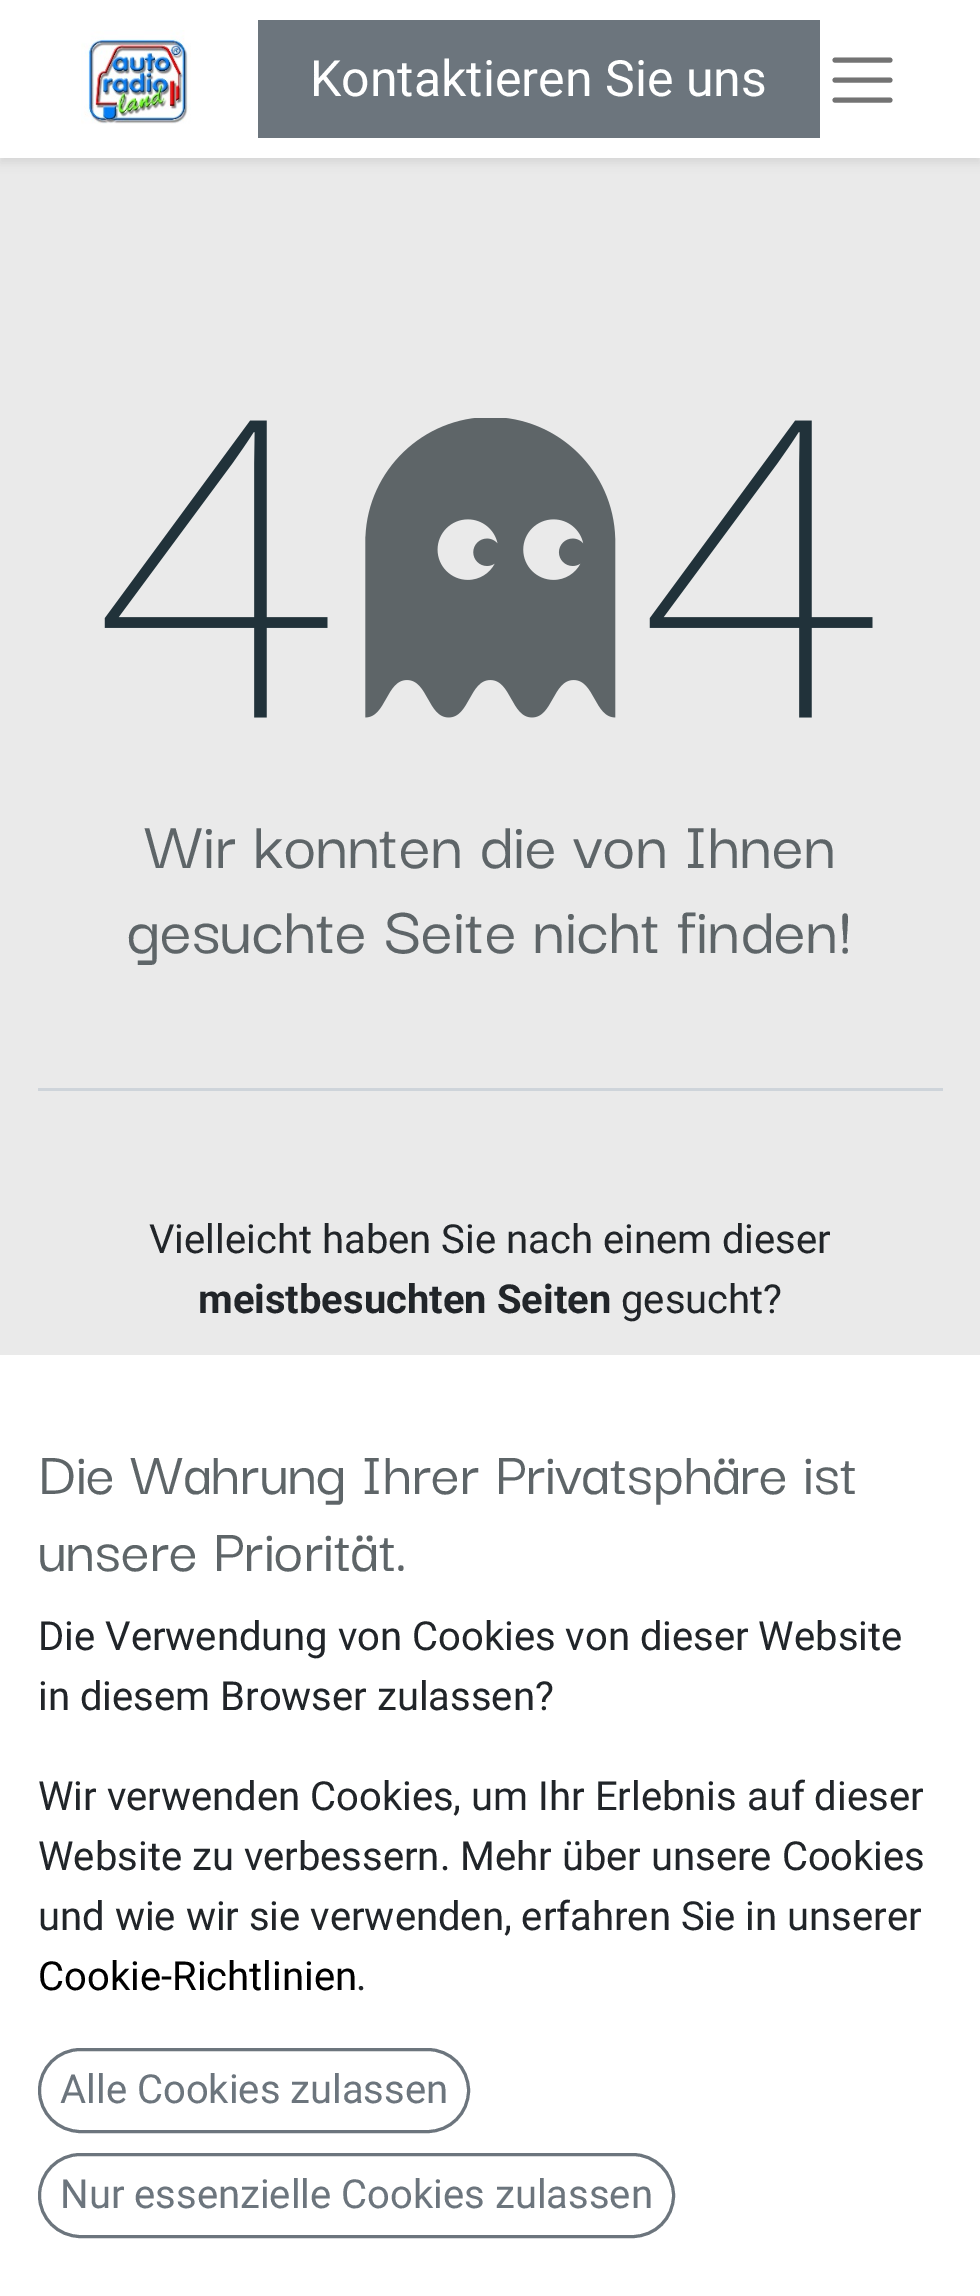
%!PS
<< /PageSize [980 2296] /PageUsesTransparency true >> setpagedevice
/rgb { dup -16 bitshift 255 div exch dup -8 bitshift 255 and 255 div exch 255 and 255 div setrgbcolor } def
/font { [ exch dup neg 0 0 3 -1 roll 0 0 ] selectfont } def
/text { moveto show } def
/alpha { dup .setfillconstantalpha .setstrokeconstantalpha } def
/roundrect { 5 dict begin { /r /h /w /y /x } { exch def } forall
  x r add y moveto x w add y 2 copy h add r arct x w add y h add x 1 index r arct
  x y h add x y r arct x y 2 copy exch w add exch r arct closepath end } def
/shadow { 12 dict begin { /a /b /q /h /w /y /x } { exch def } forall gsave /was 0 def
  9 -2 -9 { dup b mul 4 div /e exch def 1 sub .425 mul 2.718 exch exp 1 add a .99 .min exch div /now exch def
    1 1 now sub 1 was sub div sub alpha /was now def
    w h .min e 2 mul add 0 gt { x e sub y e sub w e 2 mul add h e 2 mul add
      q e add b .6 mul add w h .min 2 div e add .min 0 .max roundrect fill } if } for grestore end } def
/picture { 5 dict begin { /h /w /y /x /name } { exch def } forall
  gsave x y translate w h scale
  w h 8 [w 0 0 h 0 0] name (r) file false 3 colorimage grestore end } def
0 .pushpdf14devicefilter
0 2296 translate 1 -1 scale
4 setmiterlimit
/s1 { /Roboto-Regular 50 font 16#FFFFFF rgb } def
/s2 { /DarkerGrotesque-Medium 70.75 font 16#5E6568 rgb } def
/s3 { /Roboto-Regular 40 font 16#212529 rgb } def
/s4 { /Roboto-Bold 40 font 16#212529 rgb } def
/s5 { /DarkerGrotesque-Medium 64 font 16#5E6568 rgb } def
/s6 { /Roboto-Regular 40 font 16#000000 rgb } def
/s7 { /Roboto-Regular 40 font 16#6C757D rgb } def
16#EAEAEA rgb
0 0 980 2296 rectfill
16#000000 rgb
0 5 980 158 0 5 0.07 shadow
16#FFFFFF rgb
0 0 980 158 rectfill
(pic1.raw) 81 30 110 94 picture
16#6C757D rgb
258 20 562 118 rectfill
s1
(Kontaktieren Sie uns) 310 96 text
16#737373 rgb
5 setlinewidth
1 setlinecap
835 60 moveto 890 60 lineto 835 80 moveto 890 80 lineto 835 100 moveto 890 100 lineto stroke
(pic2.raw) 104 418 769 300 picture
s2
(Wir konnten die von Ihnen) 144 868 text
(gesuchte Seite nicht finden!) 128 953 text
16#CED4DA rgb
38 1088 905 3 rectfill
s3
(Vielleicht haben Sie nach einem dieser) 149 1253 text
s4
(meistbesuchten Seiten) 198 1313 text
s3
(gesucht?) 621 1313 text
16#FFFFFF rgb
0 1355 980 941 rectfill
s5
(Die Wahrung Ihrer Privatsphäre ist) 38 1494 text
(unsere Priorität.) 38 1571 text
s3
(Die Verwendung von Cookies von dieser Website) 38 1650 text
(in diesem Browser zulassen?) 38 1710 text
(Wir verwenden Cookies, um Ihr Erlebnis auf dieser) 38 1810 text
(Website zu verbessern. Mehr über unsere Cookies) 38 1870 text
(und wie wir sie verwenden, erfahren Sie in unserer) 38 1930 text
s6
(Cookie-Richtlinien) 38 1990 text
s3
(.) 356 1990 text
16#6C757D rgb
3 setlinewidth
0 setlinecap
39.5 2049.5 429 82 41 roundrect stroke
(Alle Cookies zulassen) 60 2103 text
39.5 2154.5 634 82 41 roundrect stroke
(Nur essenzielle Cookies zulassen) 60 2208 text
.poppdf14devicefilter showpage
